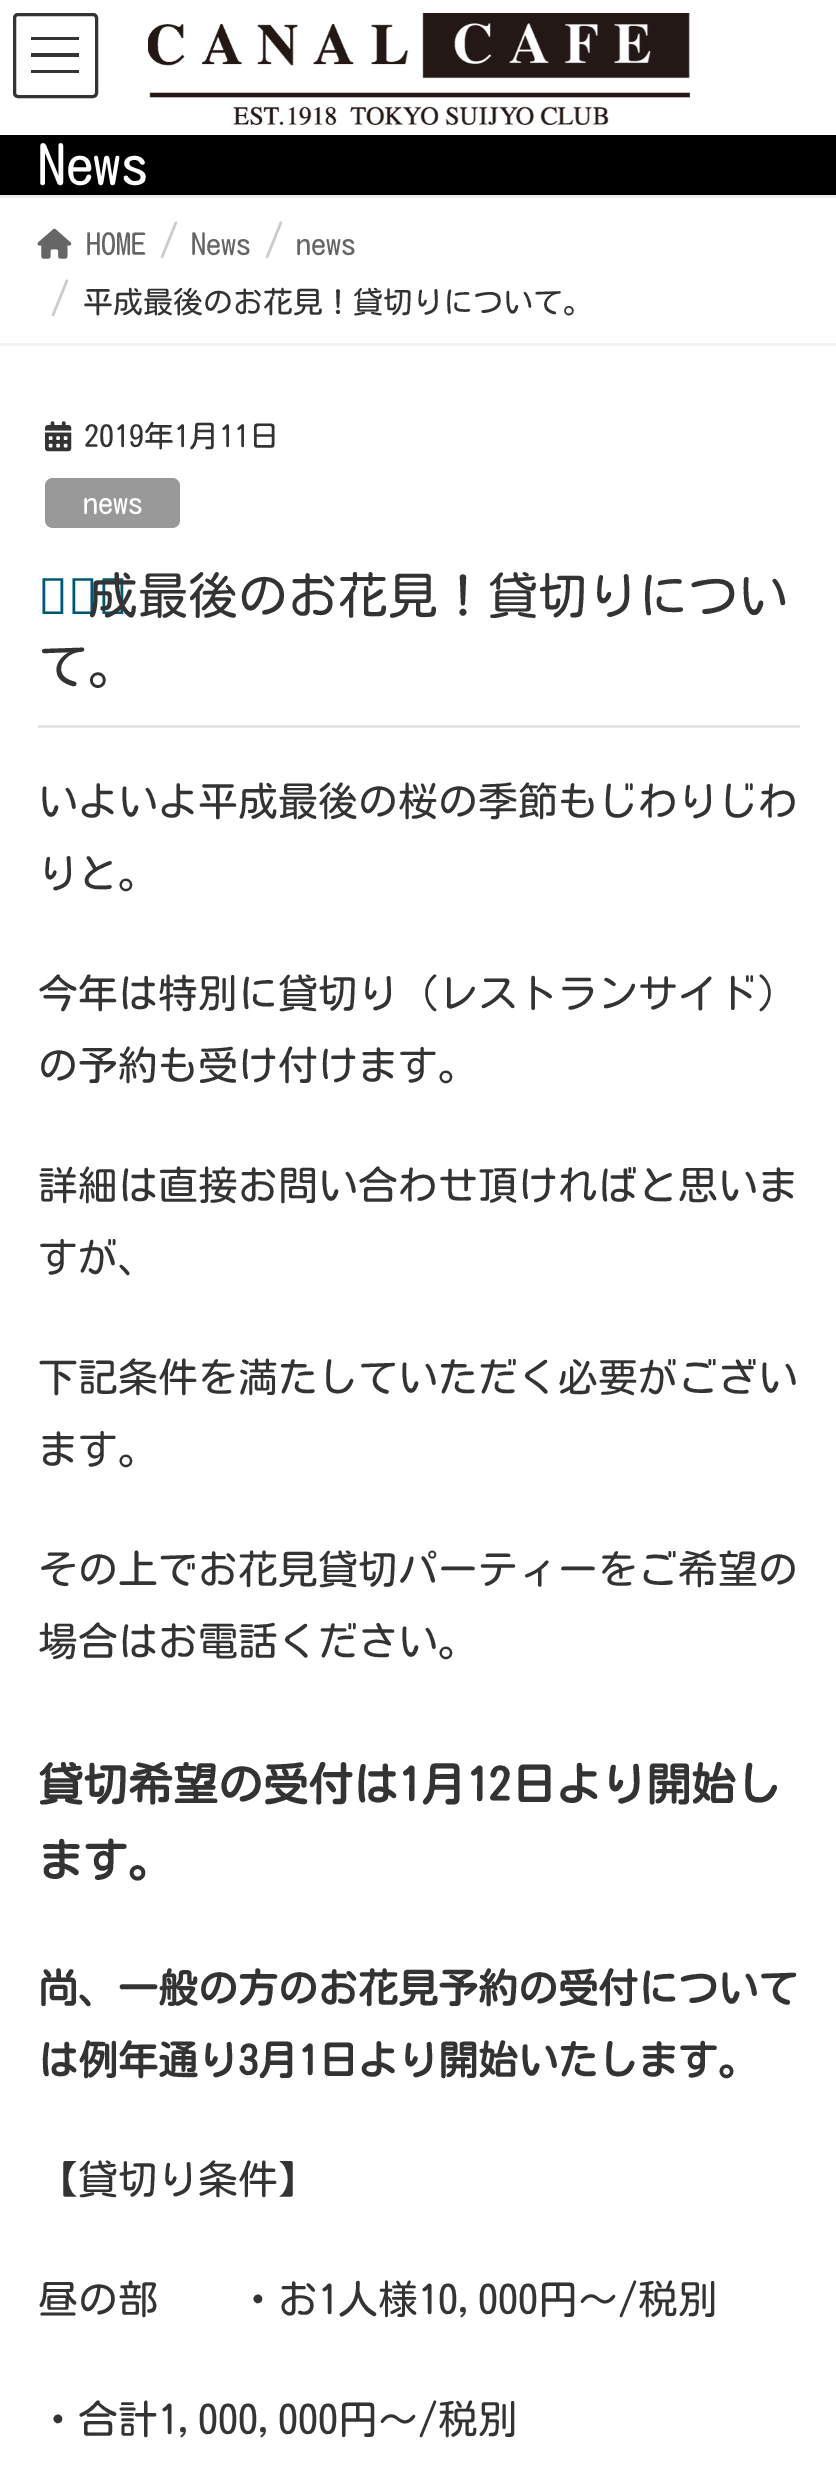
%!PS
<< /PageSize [836 2490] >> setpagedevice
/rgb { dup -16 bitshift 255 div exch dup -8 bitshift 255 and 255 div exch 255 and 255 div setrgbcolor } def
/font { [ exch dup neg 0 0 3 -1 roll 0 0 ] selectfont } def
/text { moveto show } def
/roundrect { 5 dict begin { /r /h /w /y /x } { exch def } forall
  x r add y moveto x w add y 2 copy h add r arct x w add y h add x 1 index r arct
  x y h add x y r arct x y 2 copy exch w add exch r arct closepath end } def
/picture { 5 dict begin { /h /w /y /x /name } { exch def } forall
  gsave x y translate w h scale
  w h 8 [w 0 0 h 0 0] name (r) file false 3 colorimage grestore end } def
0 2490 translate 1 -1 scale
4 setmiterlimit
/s1 { /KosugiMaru-Regular 55 font 16#FFFFFF rgb } def
/s2 { /KosugiMaru-Regular 30 font 16#666666 rgb } def
/s3 { /KosugiMaru-Regular 40 font 16#CCCCCC rgb } def
/s4 { /KosugiMaru-Regular 30 font 16#333333 rgb } def
/s5 { /KosugiMaru-Regular 30 font 16#FFFFFF rgb } def
/s6 { /NotoSans-Medium 50 font 16#005773 rgb } def
/s7 { /KosugiMaru-Regular 50 font 16#333333 rgb } def
/s8 { /KosugiMaru-Regular 40 font 16#333333 rgb } def
/s9 { /KosugiMaru-Bold 45 font 16#333333 rgb } def
/s10 { /KosugiMaru-Bold 40 font 16#333333 rgb } def
16#FFFFFF rgb
0 0 836 2490 rectfill
16#333333 rgb
31 37 48 3 rectfill
31 53 48 4 rectfill
31 70 48 3 rectfill
3 setlinewidth
14.5 14.5 82 82 3.5 roundrect stroke
(pic1.raw) 148 13 542 112 picture
16#000000 rgb
0 135 836 60 rectfill
16#EEEEEE rgb
0 195 836 3 rectfill
s1
(News) 38 185 text
16#F3F3F3 rgb
0 343 836 3 rectfill
(pic2.raw) 37 228 35 31 picture
s2
(HOME) 86 255 text
s3
(/) 159 255 text
s2
(News) 191 255 text
s3
(/) 264 255 text
s2
(news) 296 255 text
s3
(/) 50 313 text
s4
(平成最後のお花見！貸切りについて。) 83 313 text
16#E5E5E5 rgb
38 725 762 3 rectfill
(pic3.raw) 45 421 27 31 picture
s4
(2019年1月11日) 84 447 text
16#999999 rgb
45 478 135 50 8 roundrect fill
s5
(news) 83 514 text
s6
(平) 38 614 text
s7
(成最後のお花見！貸切りについ) 88 614 text
(て。) 38 684 text
s8
(いよいよ平成最後の桜の季節もじわりじわ) 38 816 text
(りと。) 38 888 text
(今年は特別に貸切り（レストランサイド）) 38 1008 text
(の予約も受け付けます。) 38 1080 text
(詳細は直接お問い合わせ頂ければと思いま) 38 1200 text
(すが、) 38 1272 text
(下記条件を満たしていただく必要がござい) 38 1392 text
(ます。) 38 1464 text
(その上でお花見貸切パーティーをご希望の) 38 1584 text
(場合はお電話ください。) 38 1656 text
s9
(貸切希望の受付は1月12日より開始し) 38 1801 text
(ます。) 38 1877 text
s10
(尚、一般の方のお花見予約の受付について) 38 2003 text
(は例年通り3月1日より開始いたします。) 38 2075 text
s8
(【貸切り条件】) 38 2194 text
(昼の部　　・お1人様10,000円～/税別) 38 2314 text
(・合計1,000,000円～/税別) 38 2434 text
showpage
